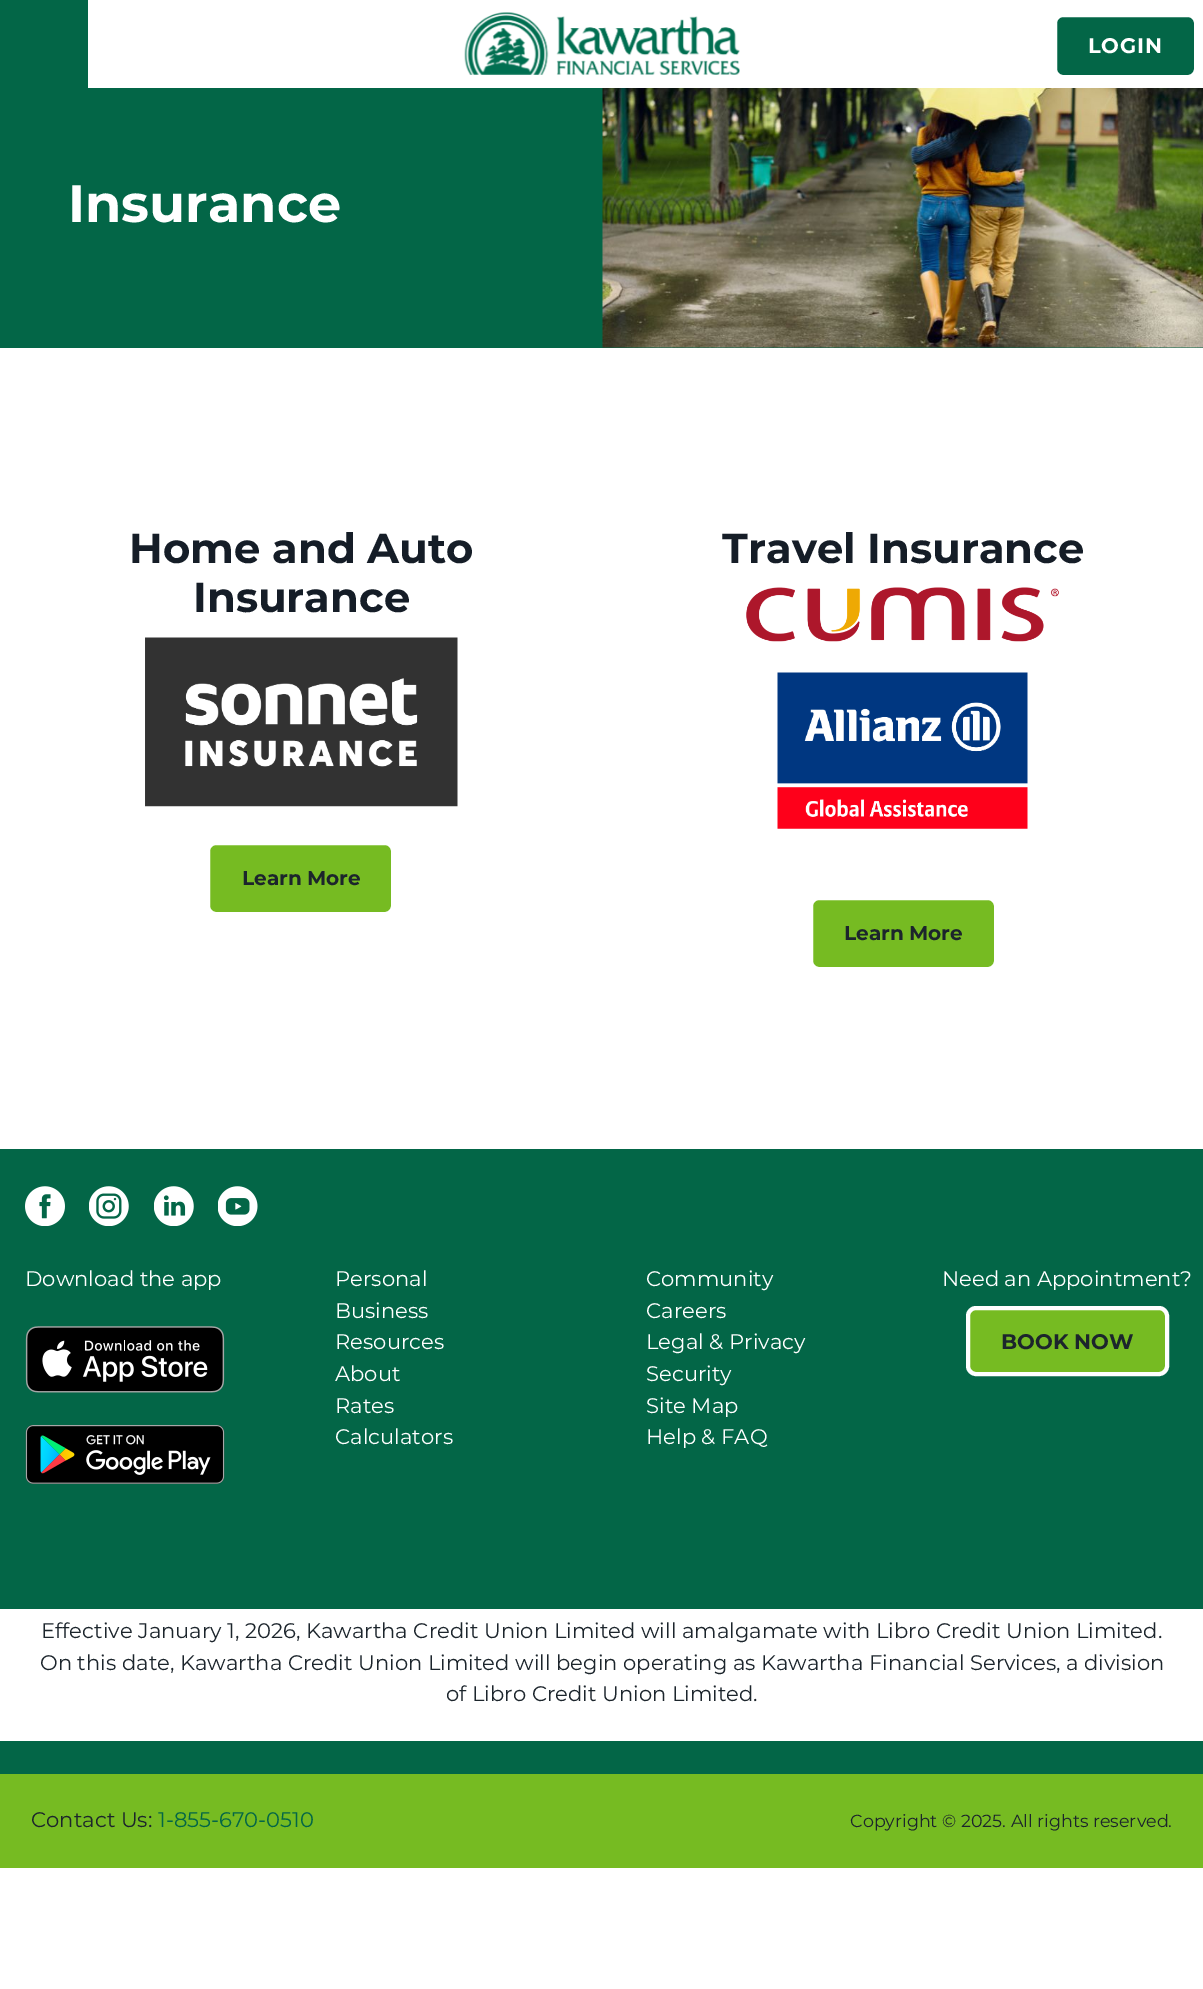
%!PS
<< /PageSize [1203 1989] >> setpagedevice
/rgb { dup -16 bitshift 255 div exch dup -8 bitshift 255 and 255 div exch 255 and 255 div setrgbcolor } def
/font { [ exch dup neg 0 0 3 -1 roll 0 0 ] selectfont } def
/text { moveto show } def
/roundrect { 5 dict begin { /r /h /w /y /x } { exch def } forall
  x r add y moveto x w add y 2 copy h add r arct x w add y h add x 1 index r arct
  x y h add x y r arct x y 2 copy exch w add exch r arct closepath end } def
/picture { 5 dict begin { /h /w /y /x /name } { exch def } forall
  gsave x y translate w h scale
  w h 8 [w 0 0 h 0 0] name (r) file false 3 colorimage grestore end } def
0 1989 translate 1 -1 scale
4 setmiterlimit
/s1 { /Montserrat-Bold 52.5 font 16#FFFFFF rgb } def
/s2 { /Montserrat-Bold 41.75 font 16#151D27 rgb } def
/s3 { /Montserrat-Bold 20 font 16#1C252C rgb } def
/s4 { /Montserrat-Regular 21.1 font 16#FFFFFF rgb } def
/s5 { /Montserrat-Bold 21.1 font 16#1C252C rgb } def
/s6 { /Montserrat-Regular 21.1 font 16#1C252C rgb } def
/s7 { /Montserrat-Regular 21.1 font 16#036647 rgb } def
/s8 { /Montserrat-Regular 17.5 font 16#1C252C rgb } def
16#FFFFFF rgb
0 0 1203 1989 rectfill
16#036647 rgb
0 0 88 88 rectfill
(pic1.raw) 464 12 276 63 picture
1055 15 141 62 8 roundrect gsave fill grestore
16#FFFFFF rgb
4 setlinewidth
stroke
/Montserrat-Bold 21.1 font
1088 53 moveto 0.75 0 (LOGIN) ashow
16#036647 rgb
0 88 1203 260 rectfill
s1
(Insurance) 68 222 text
(pic2.raw) 602 88 601 260 picture
s2
(Home and Auto) 129 563 text
(Insurance) 193 612 text
(pic3.raw) 145 637 313 170 picture
16#76BB22 rgb
208 843 185 71 8 roundrect gsave fill grestore
16#FFFFFF rgb
stroke
s3
(Learn More) 242 885 text
s2
(Travel Insurance) 722 563 text
(pic4.raw) 746 587 313 55 picture
(pic5.raw) 777 672 251 157 picture
16#76BB22 rgb
811 898 185 71 8 roundrect gsave fill grestore
16#FFFFFF rgb
stroke
s3
(Learn More) 844 940 text
16#036647 rgb
0 1149 1203 625 rectfill
(pic6.raw) 25 1186 40 40 picture
(pic7.raw) 89 1186 40 40 picture
(pic8.raw) 154 1186 40 40 picture
(pic9.raw) 218 1186 40 40 picture
s4
(Download the app) 25 1286 text
(pic10.raw) 25 1326 200 67 picture
(pic11.raw) 25 1425 200 59 picture
(Personal) 335 1286 text
(Business) 335 1318 text
(Resources) 335 1349 text
(About) 335 1381 text
(Rates) 335 1413 text
(Calculators) 335 1444 text
(Community) 646 1286 text
(Careers) 646 1318 text
(Legal & Privacy) 646 1349 text
(Security) 646 1381 text
(Site Map) 646 1413 text
(Help & FAQ) 646 1444 text
(Need an Appointment?) 942 1286 text
16#76BB22 rgb
968 1308 199 66 8 roundrect gsave fill grestore
16#FFFFFF rgb
stroke
s5
(BOOK NOW) 1001 1349 text
16#FFFFFF rgb
0 1609 1203 132 rectfill
s6
(Effective January 1, 2026, Kawartha Credit Union Limited will amalgamate with Libro Credit Union Limited.) 41 1638 text
(On this date, Kawartha Credit Union Limited will begin operating as Kawartha Financial Services, a division) 40 1670 text
(of Libro Credit Union Limited.) 446 1701 text
16#76BB22 rgb
0 1774 1203 94 rectfill
s6
(Contact Us:) 31 1827 text
s7
(1-855-670-0510) 158 1827 text
s8
(Copyright © 2025. All rights reserved.) 850 1827 text
showpage
